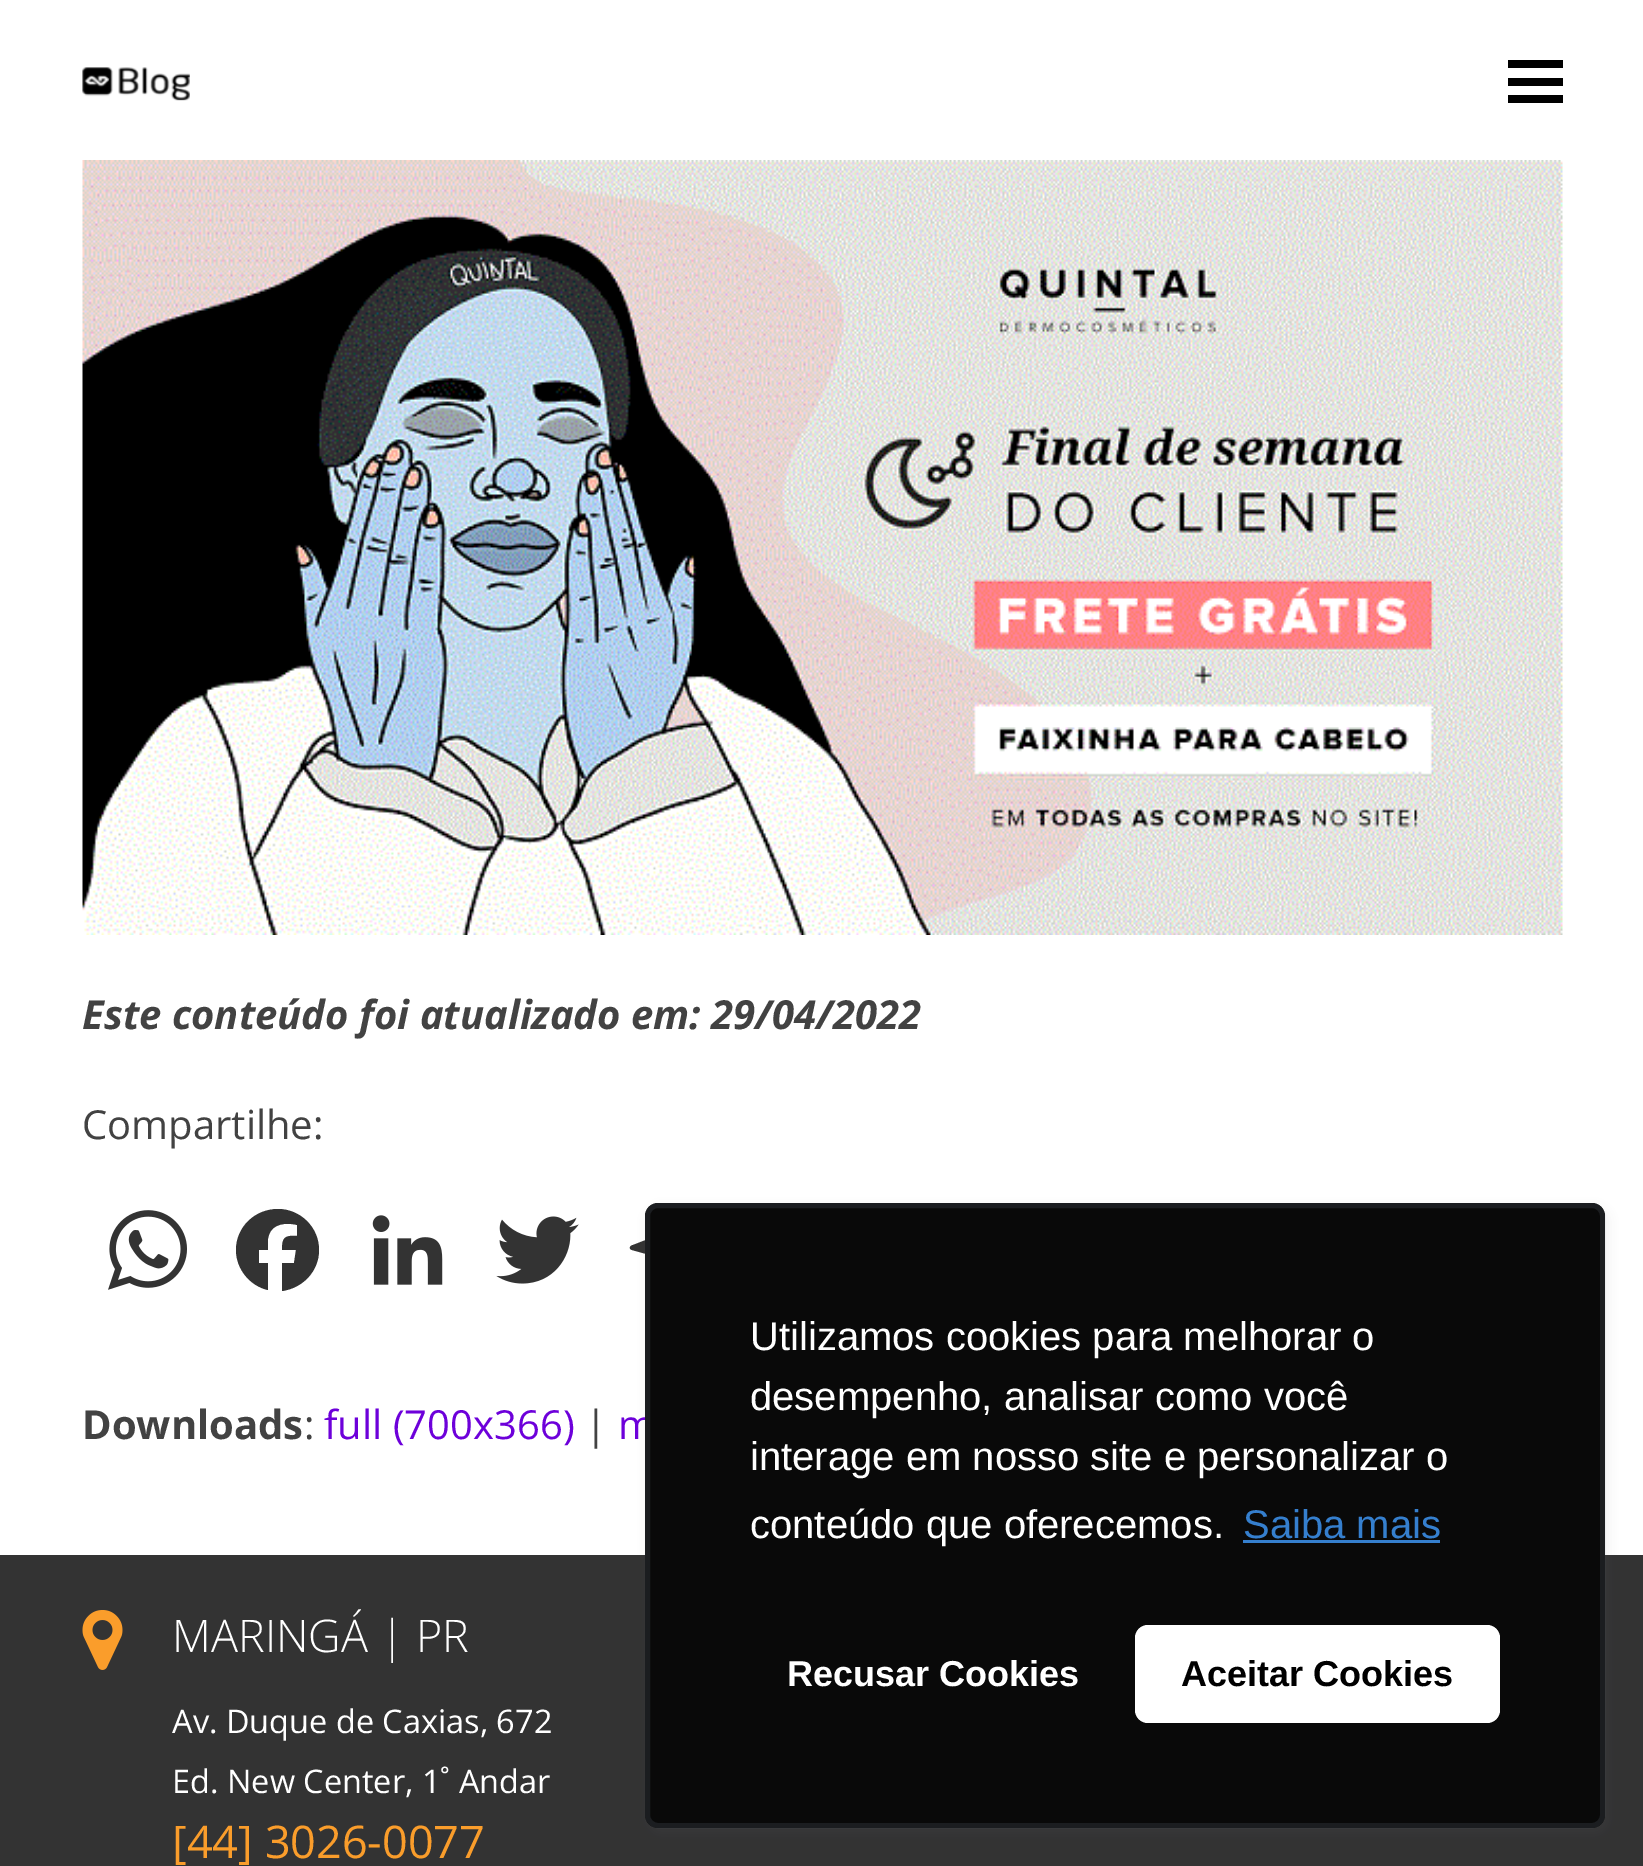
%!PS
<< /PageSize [1643 1866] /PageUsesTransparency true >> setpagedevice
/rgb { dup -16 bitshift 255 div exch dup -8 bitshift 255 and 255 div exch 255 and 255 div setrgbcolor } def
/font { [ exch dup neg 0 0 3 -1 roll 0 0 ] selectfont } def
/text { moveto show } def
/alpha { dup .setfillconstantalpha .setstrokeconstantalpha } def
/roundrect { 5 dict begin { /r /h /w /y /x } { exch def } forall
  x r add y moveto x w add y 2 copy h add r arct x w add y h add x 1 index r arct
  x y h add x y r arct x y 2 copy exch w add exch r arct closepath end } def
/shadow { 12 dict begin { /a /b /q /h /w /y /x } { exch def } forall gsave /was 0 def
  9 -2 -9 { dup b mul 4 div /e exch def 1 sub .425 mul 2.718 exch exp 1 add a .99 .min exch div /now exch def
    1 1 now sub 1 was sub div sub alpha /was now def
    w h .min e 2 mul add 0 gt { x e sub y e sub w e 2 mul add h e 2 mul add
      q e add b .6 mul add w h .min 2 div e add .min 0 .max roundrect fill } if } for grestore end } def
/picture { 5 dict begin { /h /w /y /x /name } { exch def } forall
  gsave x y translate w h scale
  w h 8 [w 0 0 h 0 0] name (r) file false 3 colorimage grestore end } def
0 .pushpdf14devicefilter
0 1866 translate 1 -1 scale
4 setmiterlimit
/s1 { /OpenSans-BoldItalic 40 font 16#424242 rgb } def
/s2 { /OpenSans-Regular 40 font 16#424242 rgb } def
/s3 { /OpenSans-Bold 40 font 16#424242 rgb } def
/s4 { /OpenSans-Regular 40 font 16#6D00DA rgb } def
/s5 { /OpenSans-Light 45 font 16#FFFFFF rgb } def
/s6 { /OpenSans-Regular 32.5 font 16#FFFFFF rgb } def
/s7 { /OpenSans-Regular 45 font 16#FA9D2B rgb } def
/s8 { /LiberationSans-Regular 40 font 16#FFFFFF rgb } def
/s9 { /LiberationSans-Regular 40 font 16#357FCE rgb } def
/s10 { /LiberationSans-Bold 36 font 16#FFFFFF rgb } def
/s11 { /LiberationSans-Bold 36 font 16#000000 rgb } def
16#FFFFFF rgb
0 0 1643 1866 rectfill
(pic1.raw) 82 67 108 34 picture
16#000000 rgb
1508 78 55 8 rectfill
1508 60 55 8 rectfill
1508 95 55 8 rectfill
(pic2.raw) 82 160 1481 775 picture
s1
(Este conteúdo foi atualizado em: 29/04/2022) 82 1029 text
s2
(Compartilhe:) 82 1139 text
(pic3.raw) 108 1210 79 80 picture
16#333333 rgb
319 1250 moveto 319 1227 300 1209 278 1209 curveto 255 1209 236 1227 236 1250 curveto 236 1269 250 1286 268 1290 curveto 268 1263 lineto 259 1263 lineto 259 1250 lineto 268 1250 lineto 268 1245 267 1240 269 1235 curveto 272 1224 286 1222 297 1225 curveto 297 1236 lineto 284 1235 282 1238 282 1250 curveto 296 1250 lineto 294 1263 lineto 282 1263 lineto 282 1291 lineto 303 1288 319 1271 319 1250 curveto fill
(pic4.raw) 372 1215 71 70 picture
(pic5.raw) 496 1216 83 68 picture
700 1219 moveto 633 1245 lineto 629 1246 629 1249 632 1250 curveto 650 1255 lineto 657 1277 lineto 660 1280 668 1269 670 1268 curveto 687 1281 lineto 691 1283 693 1282 694 1278 curveto 705 1224 lineto 706 1219 703 1217 700 1219 curveto closepath fill
s3
(Downloads) 82 1439 text
s2
(:) 304 1439 text
s4
(full \(700x366\)) 324 1439 text
s2
(|) 585 1439 text
s4
(m) 618 1439 text
16#333333 rgb
0 1555 1643 311 rectfill
(pic6.raw) 82 1610 41 60 picture
s5
(MARINGÁ | PR) 172 1652 text
s6
(Av. Duque de Caxias, 672) 172 1733 text
(Ed. New Center, 1˚ Andar) 172 1793 text
s7
([44] 3026-0077) 172 1858 text
16#636E7C rgb
648 1208 960 625 13 5 0.1 shadow
16#090909 rgb
645 1203 960 625 13 roundrect fill
0.2 alpha
16#636E7C rgb
5 setlinewidth
647.5 1205.5 955 620 10.5 roundrect stroke
1 alpha
s8
(Utilizamos cookies para melhorar o) 750 1350 text
(desempenho, analisar como você) 750 1410 text
(interage em nosso site e personalizar o) 750 1470 text
(conteúdo que oferecemos.) 750 1538 text
s9
(Saiba mais) 1243 1538 text
1243 1540 197 3 rectfill
s10
(Recusar Cookies) 787 1686 text
1135 1625 365 98 13 roundrect fill
s11
(Aceitar Cookies) 1181 1686 text
.poppdf14devicefilter showpage
